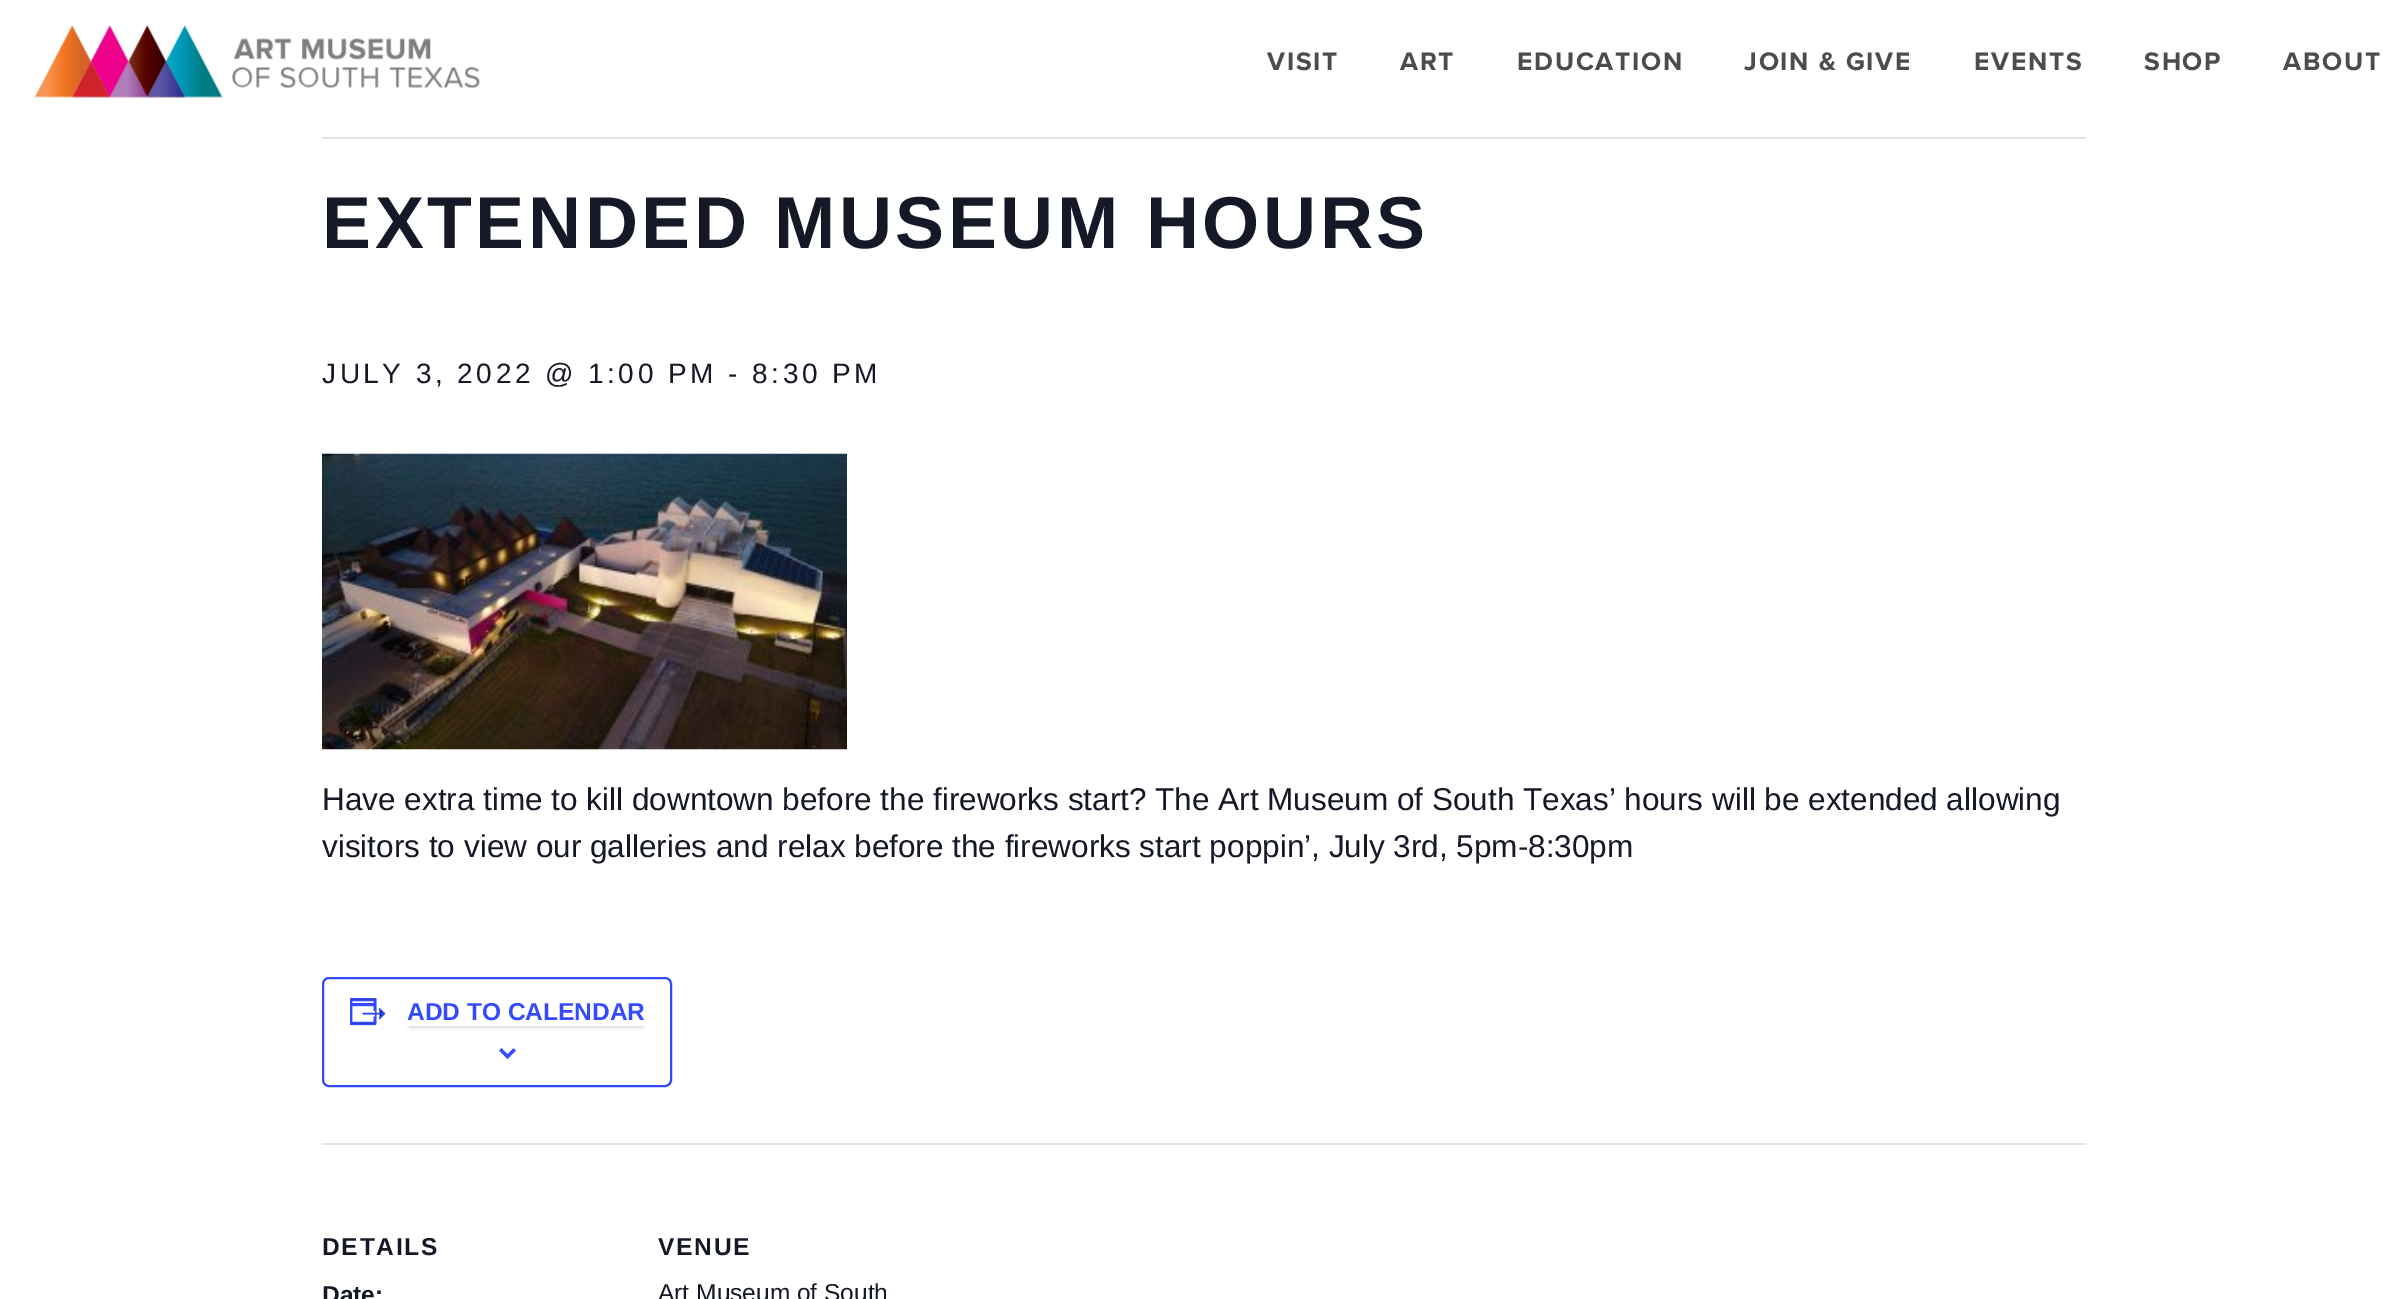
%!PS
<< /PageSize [2407 1299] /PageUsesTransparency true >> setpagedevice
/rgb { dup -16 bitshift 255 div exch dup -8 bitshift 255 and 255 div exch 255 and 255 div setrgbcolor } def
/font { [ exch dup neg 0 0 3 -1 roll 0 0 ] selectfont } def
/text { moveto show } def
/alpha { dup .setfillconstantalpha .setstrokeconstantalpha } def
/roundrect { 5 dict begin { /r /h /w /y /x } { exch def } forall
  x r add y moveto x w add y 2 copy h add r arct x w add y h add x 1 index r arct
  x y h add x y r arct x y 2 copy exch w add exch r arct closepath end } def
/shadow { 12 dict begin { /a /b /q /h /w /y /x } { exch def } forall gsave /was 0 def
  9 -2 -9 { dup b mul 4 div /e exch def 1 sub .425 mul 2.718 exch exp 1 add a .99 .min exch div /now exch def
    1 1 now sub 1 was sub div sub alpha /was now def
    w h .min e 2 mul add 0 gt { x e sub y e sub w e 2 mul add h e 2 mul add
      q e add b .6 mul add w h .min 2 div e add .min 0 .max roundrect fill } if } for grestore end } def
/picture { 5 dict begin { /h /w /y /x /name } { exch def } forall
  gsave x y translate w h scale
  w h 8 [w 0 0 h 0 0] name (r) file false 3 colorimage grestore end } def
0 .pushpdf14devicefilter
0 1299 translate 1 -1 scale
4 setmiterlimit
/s1 { /LiberationSans-Regular 31.5 font 16#141827 rgb } def
/s2 { /LiberationSans-Bold 24.5 font 16#334AFF rgb } def
/s3 { /LiberationSans-Bold 24.5 font 16#141827 rgb } def
/s4 { /LiberationSans-Regular 24.5 font 16#141827 rgb } def
16#FFFFFF rgb
0 0 2407 1299 rectfill
(pic1.raw) 34 25 446 73 picture
/ProximaNova-Bold 26.25 font
16#4C4C4C rgb
1267 70 moveto 1.75 0 (VISIT) ashow
1400 70 moveto 1.75 0 (ART) ashow
1517 70 moveto 1.75 0 (EDUCATION) ashow
1744 70 moveto 1.75 0 (JOIN & GIVE) ashow
1974 70 moveto 1.75 0 (EVENTS) ashow
2144 70 moveto 1.75 0 (SHOP) ashow
2283 70 moveto 1.75 0 (ABOUT) ashow
16#E4E4E4 rgb
322 137 1764 2 rectfill
/LiberationSans-Bold 73.5 font
16#141827 rgb
322 248 moveto 3.5 0 (EXTENDED MUSEUM HOURS) ashow
/LiberationSans-Regular 28 font
322 383 moveto 3.5 0 (JULY 3, 2022 @ 1:00 PM - 8:30 PM) ashow
(pic2.raw) 322 453 525 297 picture
s1
(Have extra time to kill downtown before the fireworks start? The Art Museum of South Texas’ hours will be extended allowing) 322 810 text
(visitors to view our galleries and relax before the fireworks start poppin’, July 3rd, 5pm-8:30pm) 322 857 text
16#334AFF rgb
2 setlinewidth
323 978 348 108 6 roundrect stroke
(pic3.raw) 350 998 36 28 picture
gsave
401 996 moveto 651 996 lineto 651 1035 lineto 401 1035 lineto closepath 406 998 moveto 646 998 lineto 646 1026 lineto 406 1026 lineto closepath eoclip newpath
16#000000 rgb
410 1005 232 21 0 2.5 0.3 shadow
grestore
s2
(ADD TO CALENDAR) 407 1020 text
(pic4.raw) 499 1048 17 11 picture
16#E4E4E4 rgb
322 1143 1764 2 rectfill
16#141827 rgb
322 1255 moveto 1.75 0 (DETAILS) ashow
(Date:) 322 1303 text
658 1255 moveto 1.75 0 (VENUE) ashow
s4
(Art Museum of South) 658 1301 text
.poppdf14devicefilter showpage
